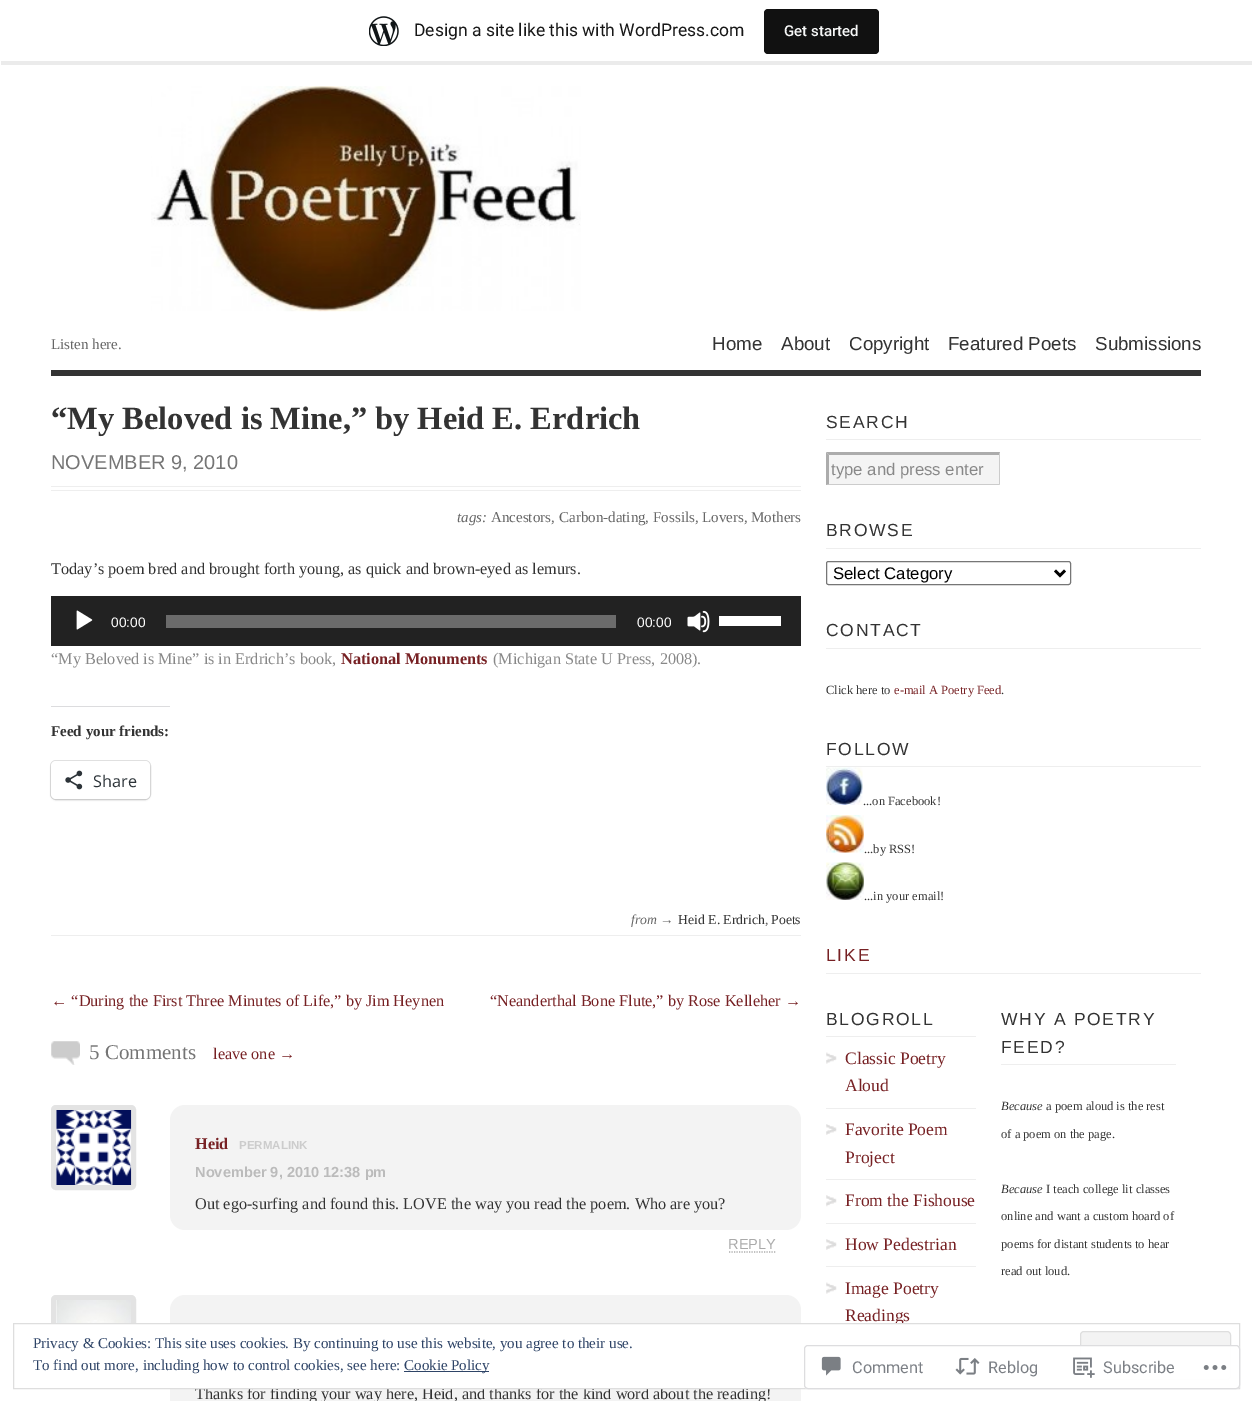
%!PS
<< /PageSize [1252 1401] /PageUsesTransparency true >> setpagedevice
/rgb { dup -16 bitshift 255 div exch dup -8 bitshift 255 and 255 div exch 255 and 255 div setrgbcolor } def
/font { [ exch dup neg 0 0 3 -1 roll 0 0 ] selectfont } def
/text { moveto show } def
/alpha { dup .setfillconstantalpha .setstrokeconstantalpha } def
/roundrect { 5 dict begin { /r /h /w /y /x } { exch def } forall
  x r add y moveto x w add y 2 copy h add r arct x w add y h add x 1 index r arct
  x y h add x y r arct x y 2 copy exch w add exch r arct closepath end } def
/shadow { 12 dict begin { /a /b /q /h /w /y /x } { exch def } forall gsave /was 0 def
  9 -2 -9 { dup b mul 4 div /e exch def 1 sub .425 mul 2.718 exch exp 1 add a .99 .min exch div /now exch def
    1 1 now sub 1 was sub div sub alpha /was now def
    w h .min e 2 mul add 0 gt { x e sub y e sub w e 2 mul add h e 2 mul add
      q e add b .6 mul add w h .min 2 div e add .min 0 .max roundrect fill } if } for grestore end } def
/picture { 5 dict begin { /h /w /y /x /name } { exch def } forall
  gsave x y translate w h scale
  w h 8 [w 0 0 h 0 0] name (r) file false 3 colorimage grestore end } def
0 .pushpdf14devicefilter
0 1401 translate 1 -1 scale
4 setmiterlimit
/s1 { /Roboto-Regular 17.5 font 16#171717 rgb } def
/s2 { /Roboto-Medium 15 font 16#F6F7F7 rgb } def
/s3 { /LiberationSerif-Regular 15 font 16#666666 rgb } def
/s4 { /LiberationSans-Regular 18.75 font 16#333333 rgb } def
/s5 { /LiberationSerif-Bold 32.5 font 16#333333 rgb } def
/s6 { /LiberationSans-Regular 20 font 16#757575 rgb } def
/s7 { /LiberationSerif-Italic 15 font 16#666666 rgb } def
/s8 { /LiberationSerif-Regular 16.25 font 16#333333 rgb } def
/s9 { /LiberationSans-Regular 13.75 font 16#FFFFFF rgb } def
/s10 { /LiberationSerif-Regular 16.25 font 16#888888 rgb } def
/s11 { /LiberationSerif-Bold 16.25 font 16#772124 rgb } def
/s12 { /LiberationSerif-Bold 15 font 16#333333 rgb } def
/s13 { /OpenSans-Regular 16.25 font 16#2C3338 rgb } def
/s14 { /LiberationSerif-Italic 13.75 font 16#666666 rgb } def
/s15 { /LiberationSerif-Regular 13.75 font 16#333333 rgb } def
/s16 { /LiberationSerif-Regular 16.25 font 16#772124 rgb } def
/s17 { /LiberationSerif-Regular 21 font 16#757575 rgb } def
/s18 { /LiberationSans-Bold 11.5 font 16#CCCCCC rgb } def
/s19 { /LiberationSans-Bold 14.6 font 16#BBBBBB rgb } def
/s20 { /LiberationSans-Regular 14.6 font 16#AAAAAA rgb } def
/s21 { /LiberationSans-Regular 16.75 font 16#888888 rgb } def
/s22 { /LiberationSans-Regular 16.75 font 16#000000 rgb } def
/s23 { /LiberationSerif-Regular 12.5 font 16#333333 rgb } def
/s24 { /LiberationSerif-Regular 12.5 font 16#772124 rgb } def
/s25 { /LiberationSerif-Regular 17.5 font 16#772124 rgb } def
/s26 { /LiberationSerif-Italic 12.5 font 16#333333 rgb } def
/s27 { /LiberationSerif-Regular 15 font 16#2E4467 rgb } def
/s28 { /Roboto-Regular 16.25 font 16#7B7F85 rgb } def
16#FFFFFF rgb
0 0 1252 1401 rectfill
0.08 alpha
16#000000 rgb
1 61 moveto 1 65 lineto 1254 65 lineto 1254 4 lineto 1252 4 lineto 1252 61 lineto closepath fill
1 alpha
(pic1.raw) 369 16 30 30 picture
s1
(Design a site like this with WordPress.com) 414 36 text
16#111111 rgb
764 9 115 45 4 roundrect fill
s2
(Get started) 784 36 text
16#333333 rgb
51 370 1150 6 rectfill
(pic2.raw) 151 86 430 226 picture
s3
(Listen here.) 51 349 text
s4
(Home) 712 350 text
(About) 781 350 text
(Copyright) 849 350 text
(Featured Poets) 948 350 text
(Submissions) 1095 350 text
16#EEEEEE rgb
51 486 750 1 rectfill
51 490 750 1 rectfill
s5
(“My Beloved is Mine,” by Heid E. Erdrich) 51 429 text
s6
(NOVEMBER 9, 2010) 51 469 text
s7
(tags:) 457 522 text
s3
(Ancestors) 491 522 text
s7
(,) 551 522 text
s3
(Carbon-dating) 559 522 text
s7
(,) 645 522 text
s3
(Fossils) 653 522 text
s7
(,) 695 522 text
s3
(Lovers) 702 522 text
s7
(,) 744 522 text
s3
(Mothers) 751 522 text
s8
(Today’s poem bred and brought forth young, as quick and brown-eyed as lemurs.) 51 574 text
16#222222 rgb
51 596 750 50 rectfill
(pic3.raw) 76 610 17 20 picture
s9
(00:00) 111 627 text
16#6B6B6B rgb
166 615 450 13 rectfill
s9
(00:00) 637 627 text
(pic4.raw) 687 610 23 23 picture
719 616 62 10 rectfill
s10
(“My Beloved is Mine” is in Erdrich’s book,) 51 664 text
s11
(National Monuments) 341 664 text
s10
(\(Michigan State U Press, 2008\).) 493 664 text
16#DCDCDE rgb
51 706 119 1 rectfill
s12
(Feed your friends:) 51 736 text
16#E0E0E0 rgb
50.5 760.5 100 39 5.5 roundrect stroke
16#000000 rgb
51 763 99 37 5 1 0.12 shadow
16#FFFFFF rgb
51 761 99 38 5 roundrect fill
(pic5.raw) 65 770 18 20 picture
s13
(Share) 93 787 text
16#EEEEEE rgb
51 935 750 1 rectfill
s14
(from →) 631 924 text
s15
(Heid E. Erdrich) 678 924 text
s14
(,) 765 924 text
s15
(Poets) 771 924 text
s16
(← “During the First Three Minutes of Life,” by Jim Heynen) 51 1006 text
(“Neanderthal Bone Flute,” by Rose Kelleher →) 490 1006 text
(pic6.raw) 51 1041 29 24 picture
s17
(5 Comments) 89 1059 text
s16
(leave one →) 213 1059 text
16#E3E3E3 rgb
5 setlinewidth
53.5 1107.5 80 80 2.5 roundrect stroke
(pic7.raw) 56 1110 76 75 picture
16#F3F3F3 rgb
170 1105 631 125 15 roundrect fill
s11
(Heid) 195 1149 text
s18
(PERMALINK) 239 1149 text
s19
(November 9, 2010 12:38 pm) 195 1177 text
s8
(Out ego-surfing and found this. LOVE the way you read the poem. Who are you?) 195 1209 text
s20
(REPLY) 728 1249 text
1.2 setlinewidth
[1.25 1.25] 0 setdash
729 1252 moveto 776 1252 lineto stroke
16#E3E3E3 rgb
5 setlinewidth
[] 0 setdash
53.5 1297.5 80 80 2.5 roundrect stroke
(pic8.raw) 56 1300 75 23 picture
16#F3F3F3 rgb
170 1295 631 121 15 roundrect fill
s8
(Thanks for finding your way here, Heid, and thanks for the kind word about the reading!) 195 1399 text
16#EEEEEE rgb
826 439 375 1 rectfill
/LiberationSans-Regular 17.5 font
16#333333 rgb
826 428 moveto 1.75 0 (SEARCH) ashow
16#F4F4F4 rgb
829 455 170 29 rectfill
16#ACACAC rgb
826 452 moveto 1000 452 lineto 999 455 lineto 829 455 lineto closepath fill
16#CCCCCC rgb
1000 452.5 moveto 1000 485 lineto 999 484 lineto 999 455 lineto closepath fill
1000 485 moveto 826 485 lineto 829 484 lineto 999 484 lineto closepath fill
16#ACACAC rgb
826 485 moveto 826 452.5 lineto 829 455 lineto 829 484 lineto closepath fill
s21
(type and press enter) 831 475 text
16#EEEEEE rgb
826 548 375 1 rectfill
/LiberationSans-Regular 17.5 font
16#333333 rgb
826 536 moveto 1.75 0 (BROWSE) ashow
16#767676 rgb
1 setlinewidth
826.5 561.5 244 23 2 roundrect stroke
16#000000 rgb
2.5 setlinewidth
1055 570.5 moveto 1060 575.5 lineto 1065 570.5 lineto stroke
s22
(Select Category) 833 579 text
16#EEEEEE rgb
826 648 375 1 rectfill
/LiberationSans-Regular 17.5 font
16#333333 rgb
826 636 moveto 1.75 0 (CONTACT) ashow
s23
(Click here to) 826 694 text
s24
(e-mail A Poetry Feed) 894 694 text
s23
(.) 1001 694 text
16#EEEEEE rgb
826 766 375 1 rectfill
/LiberationSans-Regular 17.5 font
16#333333 rgb
826 755 moveto 1.75 0 (FOLLOW) ashow
(pic9.raw) 826 767 37 38 picture
s23
(...on Facebook!) 863 805 text
(pic10.raw) 826 815 38 38 picture
(...by RSS!) 864 853 text
(pic11.raw) 826 862 38 38 picture
(...in your email!) 864 900 text
16#EEEEEE rgb
826 973 375 1 rectfill
/LiberationSans-Regular 17.5 font
16#772124 rgb
826 961 moveto 1.75 0 (LIKE) ashow
16#EEEEEE rgb
826 1036 150 1 rectfill
16#333333 rgb
826 1025 moveto 1.75 0 (BLOGROLL) ashow
16#EEEEEE rgb
826 1108 150 1 rectfill
(pic12.raw) 826 1052 11 12 picture
s25
(Classic Poetry) 845 1064 text
(Aloud) 845 1091 text
16#EEEEEE rgb
826 1179 150 1 rectfill
(pic13.raw) 826 1124 11 11 picture
s25
(Favorite Poem) 845 1135 text
(Project) 845 1163 text
16#EEEEEE rgb
826 1223 150 1 rectfill
(pic14.raw) 826 1195 11 12 picture
s25
(From the Fishouse) 845 1206 text
16#EEEEEE rgb
826 1266 150 1 rectfill
(pic13.raw) 826 1239 11 11 picture
s25
(How Pedestrian) 845 1250 text
(pic12.raw) 826 1282 11 12 picture
(Image Poetry) 845 1294 text
(Readings) 845 1321 text
16#EEEEEE rgb
1001 1064 175 1 rectfill
/LiberationSans-Regular 17.5 font
16#333333 rgb
1001 1025 moveto 1.75 0 (WHY A POETRY) ashow
1001 1053 moveto 1.75 0 (FEED?) ashow
s26
(Because) 1001 1110 text
s23
(a poem aloud is the rest) 1046 1110 text
(of a poem on the page.) 1001 1138 text
s26
(Because) 1001 1193 text
s23
(I teach college lit classes) 1046 1193 text
(online and want a custom hoard of) 1001 1220 text
(poems for distant students to hear) 1001 1248 text
(read out loud.) 1001 1275 text
16#FFFFFF rgb
51 1324 851 64 rectfill
16#DEDEDE rgb
1 setlinewidth
13.5 1323.5 1226 65 rectstroke
s27
(Privacy & Cookies: This site uses cookies. By continuing to use this website, you agree to their use.) 33 1348 text
16#F3F3F3 rgb
1080.5 1331.5 150 48 3.5 roundrect gsave fill grestore
16#DEDEDE rgb
stroke
s27
(To find out more, including how to control cookies, see here:) 33 1370 text
404 1371 85 1 rectfill
(Cookie Policy) 404 1370 text
0.98 alpha
16#FFFFFF rgb
804 1345 436 44 4 roundrect fill
16#DCDCDE rgb
804.5 1345.5 435 43 3.5 roundrect stroke
1 alpha
(pic15.raw) 821 1356 20 20 picture
s28
(Comment) 852 1373 text
(pic16.raw) 955 1357 25 18 picture
(Reblog) 988 1373 text
(pic17.raw) 1073 1357 22 21 picture
(Subscribe) 1103 1373 text
(pic18.raw) 1203 1365 24 5 picture
.poppdf14devicefilter showpage
